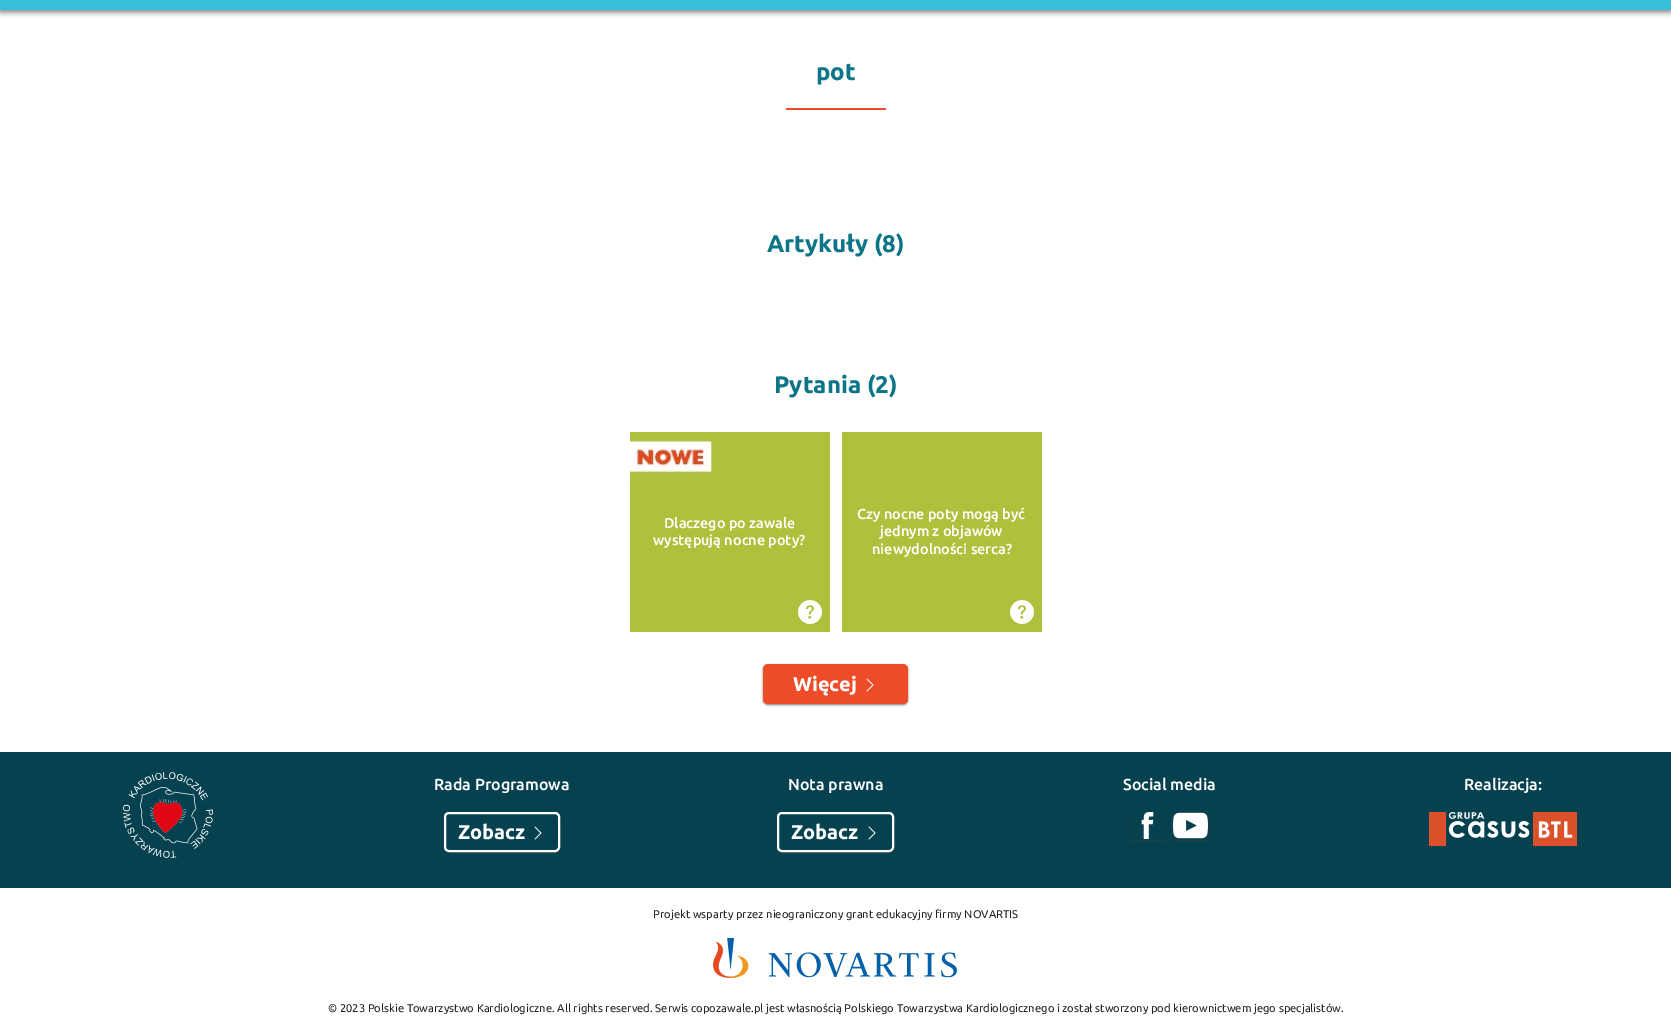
%!PS
<< /PageSize [1671 1034] /PageUsesTransparency true >> setpagedevice
/rgb { dup -16 bitshift 255 div exch dup -8 bitshift 255 and 255 div exch 255 and 255 div setrgbcolor } def
/font { [ exch dup neg 0 0 3 -1 roll 0 0 ] selectfont } def
/text { moveto show } def
/alpha { dup .setfillconstantalpha .setstrokeconstantalpha } def
/roundrect { 5 dict begin { /r /h /w /y /x } { exch def } forall
  x r add y moveto x w add y 2 copy h add r arct x w add y h add x 1 index r arct
  x y h add x y r arct x y 2 copy exch w add exch r arct closepath end } def
/shadow { 12 dict begin { /a /b /q /h /w /y /x } { exch def } forall gsave /was 0 def
  9 -2 -9 { dup b mul 4 div /e exch def 1 sub .425 mul 2.718 exch exp 1 add a .99 .min exch div /now exch def
    1 1 now sub 1 was sub div sub alpha /was now def
    w h .min e 2 mul add 0 gt { x e sub y e sub w e 2 mul add h e 2 mul add
      q e add b .6 mul add w h .min 2 div e add .min 0 .max roundrect fill } if } for grestore end } def
/picture { 5 dict begin { /h /w /y /x /name } { exch def } forall
  gsave x y translate w h scale
  w h 8 [w 0 0 h 0 0] name (r) file false 3 colorimage grestore end } def
0 .pushpdf14devicefilter
0 1034 translate 1 -1 scale
4 setmiterlimit
/s1 { /Ubuntu-Bold 24 font 16#0C7688 rgb } def
/s2 { /Ubuntu-Medium 14.4 font 16#FFFFFF rgb } def
/s3 { /Ubuntu-Bold 20 font 16#FFFFFF rgb } def
/s4 { /Ubuntu-Medium 16 font 16#FFFFFF rgb } def
/s5 { /Ubuntu-Regular 11.2 font 16#212529 rgb } def
16#FFFFFF rgb
0 0 1671 1034 rectfill
16#3C3C3C rgb
0 -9 1671 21 0 3 0.7 shadow
gsave 0 0 moveto 1671 0 lineto 1671 10 lineto 0 10 lineto closepath clip newpath
<< /ShadingType 2 /ColorSpace /DeviceRGB /Coords [836 10 836 -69] /Extend [true true] /Function << /FunctionType 2 /Domain [0 1] /C0 [0.216 0.745 0.847] /C1 [0.31 0.749 0.835] /N 1 >> >> shfill grestore
s1
(pot) 816 80 text
16#EE4C28 rgb
786 108 100 2 rectfill
s1
(Artykuły \(8\)) 767 252 text
(Pytania \(2\)) 774 393 text
16#B0C03C rgb
630 432 200 200 rectfill
(pic1.raw) 630 439 83 43 picture
s2
(Dlaczego po zawale) 664 528 text
(występują nocne poty?) 653 545 text
(pic2.raw) 798 600 24 24 picture
16#B0C03C rgb
842 432 200 200 rectfill
s2
(Czy nocne poty mogą być) 857 519 text
(jednym z objawów) 880 536 text
(niewydolności serca?) 872 554 text
(pic2.raw) 1010 600 24 24 picture
16#3C3C3C rgb
763 665 145 40 5 1 0.7 shadow
16#EE4C28 rgb
763 664 145 40 5 roundrect fill
s3
(Więcej) 793 691 text
(pic3.raw) 866 678 8 14 picture
16#06414F rgb
0 752 1671 136 rectfill
(pic4.raw) 123 772 90 86 picture
s4
(Rada Programowa) 434 790 text
gsave
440 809 moveto 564 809 lineto 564 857 lineto 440 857 lineto closepath 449 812 moveto 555 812 lineto 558 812 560 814 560 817 curveto 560 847 lineto 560 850 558 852 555 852 curveto 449 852 lineto 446 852 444 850 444 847 curveto 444 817 lineto 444 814 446 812 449 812 curveto closepath eoclip newpath
16#3C3C3C rgb
444 813 116 40 5 1 0.7 shadow
grestore
2 setlinewidth
445 813 114 38 4 roundrect stroke
s3
(Zobacz) 458 839 text
(pic5.raw) 534 826 8 14 picture
s4
(Nota prawna) 788 790 text
gsave
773 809 moveto 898 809 lineto 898 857 lineto 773 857 lineto closepath 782 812 moveto 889 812 lineto 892 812 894 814 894 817 curveto 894 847 lineto 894 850 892 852 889 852 curveto 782 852 lineto 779 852 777 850 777 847 curveto 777 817 lineto 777 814 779 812 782 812 curveto closepath eoclip newpath
16#3C3C3C rgb
777 813 117 40 5 1 0.7 shadow
grestore
778 813 115 38 4 roundrect stroke
s3
(Zobacz) 791 839 text
(pic5.raw) 868 826 8 14 picture
s4
(Social media) 1123 790 text
gsave
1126 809 moveto 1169 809 lineto 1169 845 lineto 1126 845 lineto closepath 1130 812 moveto 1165 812 lineto 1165 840 lineto 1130 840 lineto closepath eoclip newpath
16#3C3C3C rgb
1130 813 35 28 0 1 0.7 shadow
grestore
(pic6.raw) 1141 812 13 27 picture
gsave
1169 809 moveto 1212 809 lineto 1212 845 lineto 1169 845 lineto closepath 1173 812 moveto 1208 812 lineto 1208 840 lineto 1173 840 lineto closepath eoclip newpath
16#3C3C3C rgb
1173 813 35 28 0 1 0.7 shadow
grestore
(pic7.raw) 1173 812 35 27 picture
(Realizacja:) 1464 790 text
(pic8.raw) 1429 812 148 34 picture
s5
(Projekt wsparty przez nieograniczony grant edukacyjny firmy NOVARTIS) 653 918 text
(pic9.raw) 713 938 244 40 picture
(© 2023 Polskie Towarzystwo Kardiologiczne. All rights reserved. Serwis copozawale.pl jest własnością Polskiego Towarzystwa Kardiologicznego i został stworzony pod kierownictwem jego specjalistów.) 328 1012 text
.poppdf14devicefilter showpage
